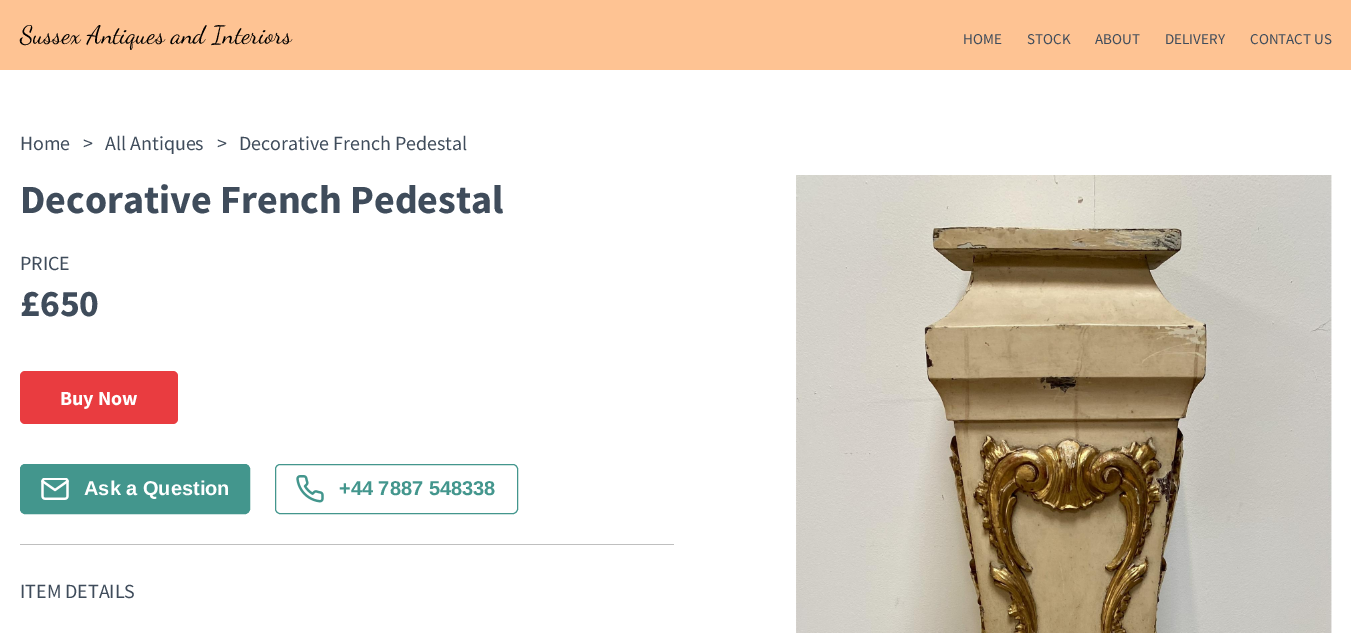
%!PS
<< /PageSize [1351 633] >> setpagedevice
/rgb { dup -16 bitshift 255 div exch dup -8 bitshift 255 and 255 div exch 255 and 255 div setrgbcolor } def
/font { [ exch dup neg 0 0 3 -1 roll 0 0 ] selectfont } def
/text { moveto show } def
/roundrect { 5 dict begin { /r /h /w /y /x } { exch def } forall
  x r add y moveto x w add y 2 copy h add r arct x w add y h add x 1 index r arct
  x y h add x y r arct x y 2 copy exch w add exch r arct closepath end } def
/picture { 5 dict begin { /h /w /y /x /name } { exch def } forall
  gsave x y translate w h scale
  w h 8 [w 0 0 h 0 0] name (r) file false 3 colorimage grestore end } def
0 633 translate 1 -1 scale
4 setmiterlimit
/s1 { /DancingScript-Regular 25 font 16#000000 rgb } def
/s2 { /SourceSansPro-Regular 15 font 16#3F4C5B rgb } def
/s3 { /SourceSansPro-Regular 20 font 16#3F4C5B rgb } def
/s4 { /SourceSansPro-Bold 40 font 16#3F4C5B rgb } def
/s5 { /SourceSansPro-Bold 37.5 font 16#3F4C5B rgb } def
/s6 { /SourceSansPro-Bold 20 font 16#FFFFFF rgb } def
/s7 { /LiberationSans-Bold 20 font 16#FFFFFF rgb } def
/s8 { /LiberationSans-Bold 20 font 16#43968D rgb } def
16#FFFFFF rgb
0 0 1351 633 rectfill
16#FEC393 rgb
0 0 1351 70 rectfill
s1
(Sussex Antiques and Interiors) 20 43 text
s2
(HOME) 963 44 text
(STOCK) 1027 44 text
(ABOUT) 1095 44 text
(DELIVERY) 1165 44 text
(CONTACT US) 1250 44 text
s3
(Home) 20 150 text
(>) 83 150 text
(All Antiques) 105 150 text
(>) 217 150 text
(Decorative French Pedestal) 239 150 text
16#BFBFBF rgb
20 544 654 1 rectfill
s4
(Decorative French Pedestal) 20 213 text
s3
(PRICE) 20 270 text
s5
(£650) 20 316 text
16#E93C40 rgb
20 371 158 53 5 roundrect fill
s6
(Buy Now) 60 405 text
16#43968D rgb
20.5 464.5 229 49 4.5 roundrect gsave fill grestore
stroke
(pic1.raw) 41 478 28 22 picture
s7
(Ask a Question) 84 495 text
16#43968D rgb
275.5 464.5 242 49 4.5 roundrect stroke
(pic2.raw) 296 475 28 28 picture
(+44 7887 548338) 339 495 text
s3
(ITEM DETAILS) 20 598 text
(pic3.raw) 796 175 536 458 picture
(pic4.raw) 796 175 536 458 picture
showpage
